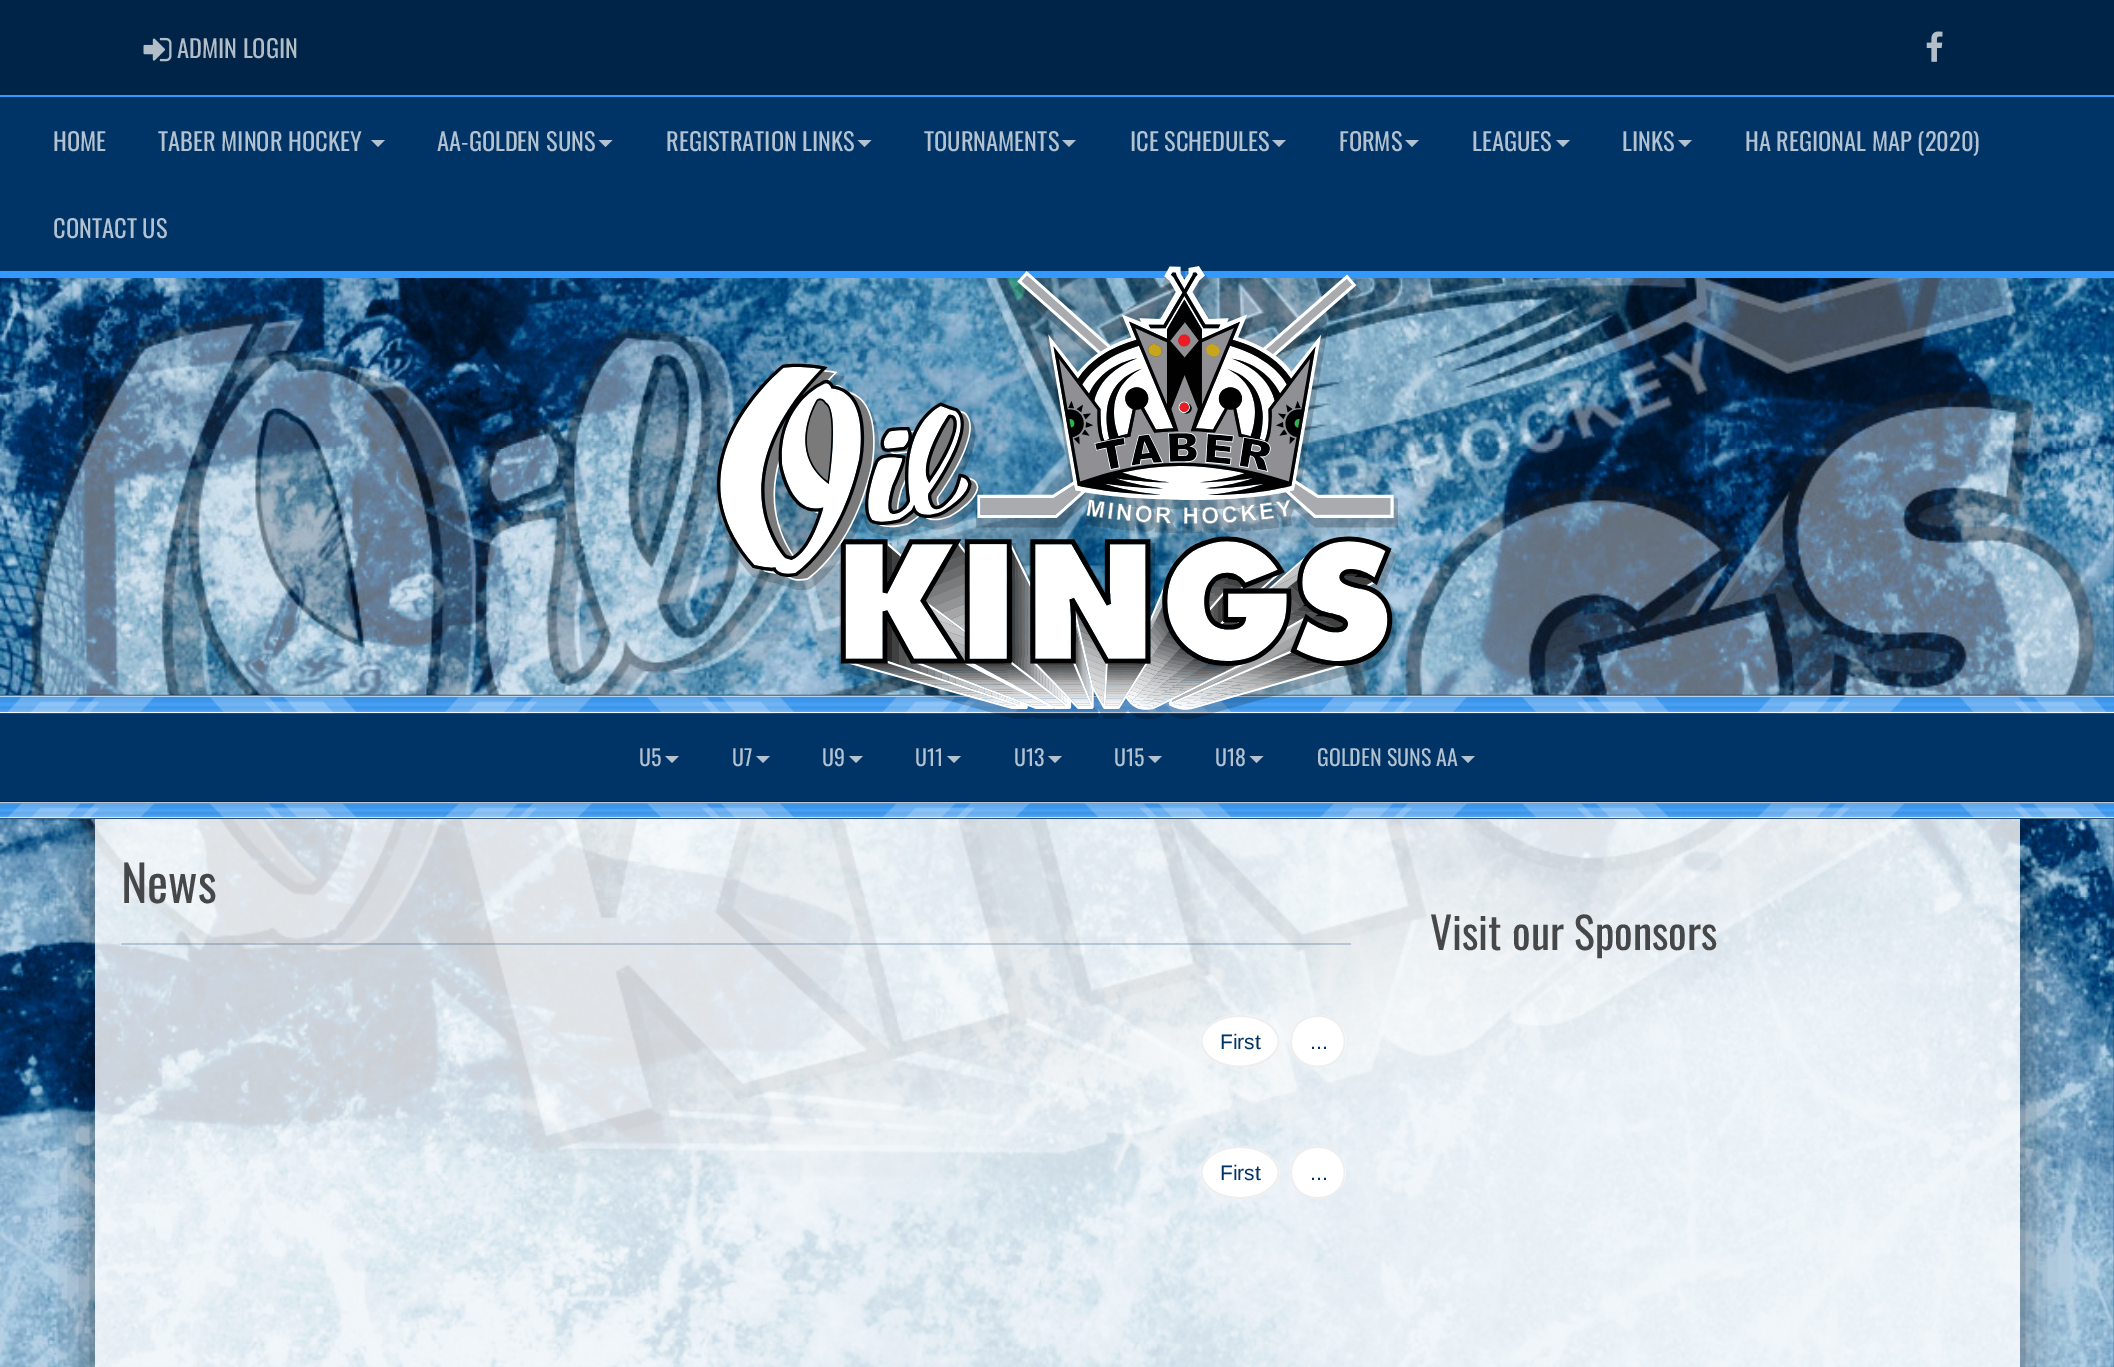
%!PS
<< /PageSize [2114 1367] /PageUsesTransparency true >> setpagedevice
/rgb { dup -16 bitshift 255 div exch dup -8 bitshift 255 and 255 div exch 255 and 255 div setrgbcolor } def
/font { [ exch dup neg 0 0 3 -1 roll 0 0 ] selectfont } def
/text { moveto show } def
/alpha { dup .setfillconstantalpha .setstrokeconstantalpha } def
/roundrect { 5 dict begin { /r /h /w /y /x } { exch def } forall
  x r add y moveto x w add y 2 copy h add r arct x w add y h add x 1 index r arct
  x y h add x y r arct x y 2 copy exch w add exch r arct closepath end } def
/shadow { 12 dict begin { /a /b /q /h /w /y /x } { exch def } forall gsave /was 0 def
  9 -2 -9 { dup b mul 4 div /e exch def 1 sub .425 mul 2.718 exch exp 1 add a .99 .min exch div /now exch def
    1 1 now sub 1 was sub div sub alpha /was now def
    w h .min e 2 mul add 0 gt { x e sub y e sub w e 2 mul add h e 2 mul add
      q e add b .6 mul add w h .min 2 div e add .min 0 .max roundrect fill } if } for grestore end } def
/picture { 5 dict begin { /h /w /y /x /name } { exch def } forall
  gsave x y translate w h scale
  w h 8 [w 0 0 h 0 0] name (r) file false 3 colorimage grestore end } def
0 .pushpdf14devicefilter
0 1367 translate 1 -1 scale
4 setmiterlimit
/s1 { /Oswald-Regular 24.5 font 16#B3BDC8 rgb } def
/s2 { /Oswald-Regular 24.5 font 16#B3C2D1 rgb } def
/s3 { /Oswald-Regular 22 font 16#B3C2D1 rgb } def
/s4 { /Oswald-Regular 50 font 16#464749 rgb } def
/s5 { /LiberationSans-Regular 21 font 16#003366 rgb } def
/s6 { /Oswald-Regular 43.75 font 16#464749 rgb } def
16#FFFFFF rgb
0 0 2114 1367 rectfill
16#3399FF rgb
0 95 2114 2 rectfill
16#002447 rgb
0 0 2114 95 rectfill
(pic1.raw) 143 37 29 25 picture
s1
(ADMIN LOGIN) 177 58 text
(pic2.raw) 1926 31 17 31 picture
16#003366 rgb
0 97 2114 174 rectfill
16#3399FF rgb
0 271 2114 7 rectfill
s2
(HOME) 53 151 text
(TABER MINOR HOCKEY) 158 151 text
371 140 moveto 385 140 lineto 378 147 lineto closepath fill
(AA-GOLDEN SUNS) 437 151 text
598.5 140 moveto 612.5 140 lineto 605.5 147 lineto closepath fill
(REGISTRATION LINKS) 666 151 text
857.5 140 moveto 871.5 140 lineto 864.5 147 lineto closepath fill
(TOURNAMENTS) 924 151 text
1062 140 moveto 1076 140 lineto 1069 147 lineto closepath fill
(ICE SCHEDULES) 1130 151 text
1272 140 moveto 1286 140 lineto 1279 147 lineto closepath fill
(FORMS) 1339 151 text
1405 140 moveto 1419 140 lineto 1412 147 lineto closepath fill
(LEAGUES) 1472 151 text
1556 140 moveto 1570 140 lineto 1563 147 lineto closepath fill
(LINKS) 1622 151 text
1678 140 moveto 1692 140 lineto 1685 147 lineto closepath fill
(HA REGIONAL MAP \(2020\)) 1745 151 text
(CONTACT US) 53 238 text
(pic4.raw) 0 278 2114 1089 picture
16#3399FF rgb
0 695 2114 19 rectfill
(pic5.raw) 0 694 2114 20 picture
gsave
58 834 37 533 rectclip
16#000000 rgb
95 863 1837 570 0 22 0.45 shadow
grestore
gsave
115 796 moveto 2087 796 lineto 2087 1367 lineto 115 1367 lineto closepath 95 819 moveto 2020 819 lineto 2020 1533 lineto 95 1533 lineto closepath eoclip newpath
16#000000 rgb
182 863 1838 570 0 22 0.45 shadow
grestore
16#003366 rgb
0 714 2114 88 rectfill
(pic3.raw) 716 266 682 453 picture
s3
(U5) 639 766 text
665 756 moveto 679 756 lineto 672 763 lineto closepath fill
(U7) 732 766 text
756 756 moveto 770 756 lineto 763 763 lineto closepath fill
(U9) 822 766 text
849 756 moveto 863 756 lineto 856 763 lineto closepath fill
(U11) 915 766 text
947 756 moveto 961 756 lineto 954 763 lineto closepath fill
(U13) 1014 766 text
1048 756 moveto 1062 756 lineto 1055 763 lineto closepath fill
(U15) 1114 766 text
1148 756 moveto 1162 756 lineto 1155 763 lineto closepath fill
(U18) 1215 766 text
1249.5 756 moveto 1263.5 756 lineto 1256.5 763 lineto closepath fill
(GOLDEN SUNS AA) 1317 766 text
1461 756 moveto 1475 756 lineto 1468 763 lineto closepath fill
16#3399FF rgb
0 802 2114 17 rectfill
(pic6.raw) 0 801 2114 18 picture
0.8 alpha
16#FFFFFF rgb
95 819 1925 548 rectfill
1 alpha
s4
(News) 121 903 text
0.2 alpha
16#003366 rgb
121 943 1230 2 rectfill
1 alpha
16#FFFFFF rgb
1240 1015 moveto 1262 1015 1279.5 1026.5 1279.5 1041 curveto 1279.5 1055.5 1262 1067 1240 1067 curveto 1218 1067 1200.5 1055.5 1200.5 1041 curveto 1200.5 1026.5 1218 1015 1240 1015 curveto closepath fill
16#EEEEEE rgb
1.8 setlinewidth
1240 1016 moveto 1261 1016 1278.5 1027 1278.5 1041 curveto 1278.5 1055.5 1261 1066.5 1240 1066.5 curveto 1218.5 1066.5 1201.5 1055.5 1201.5 1041 curveto 1201.5 1027 1218.5 1016 1240 1016 curveto closepath stroke
s5
(First) 1220 1049 text
16#FFFFFF rgb
1318 1015 moveto 1333.5 1015 1346 1026.5 1346 1041 curveto 1346 1055.5 1333.5 1067 1318 1067 curveto 1302.5 1067 1290 1055.5 1290 1041 curveto 1290 1026.5 1302.5 1015 1318 1015 curveto closepath fill
16#EEEEEE rgb
1318 1016 moveto 1353.5 1016 1353.5 1066.5 1318 1066.5 curveto 1282 1066.5 1282 1016 1318 1016 curveto closepath stroke
s5
(...) 1310 1049 text
16#FFFFFF rgb
1240 1146.5 moveto 1262 1146.5 1279.5 1158 1279.5 1172.5 curveto 1279.5 1187 1262 1198.5 1240 1198.5 curveto 1218 1198.5 1200.5 1187 1200.5 1172.5 curveto 1200.5 1158 1218 1146.5 1240 1146.5 curveto closepath fill
16#EEEEEE rgb
1240 1147 moveto 1261 1147 1278.5 1158.5 1278.5 1172.5 curveto 1278.5 1186.5 1261 1198 1240 1198 curveto 1218.5 1198 1201.5 1186.5 1201.5 1172.5 curveto 1201.5 1158.5 1218.5 1147 1240 1147 curveto closepath stroke
s5
(First) 1220 1180 text
16#FFFFFF rgb
1318 1146.5 moveto 1333.5 1146.5 1346 1158 1346 1172.5 curveto 1346 1187 1333.5 1198.5 1318 1198.5 curveto 1302.5 1198.5 1290 1187 1290 1172.5 curveto 1290 1158 1302.5 1146.5 1318 1146.5 curveto closepath fill
16#EEEEEE rgb
1318 1147 moveto 1353.5 1147 1353.5 1198 1318 1198 curveto 1282 1198 1282 1147 1318 1147 curveto closepath stroke
s5
(...) 1310 1180 text
s6
(Visit our Sponsors) 1430 950 text
.poppdf14devicefilter showpage
